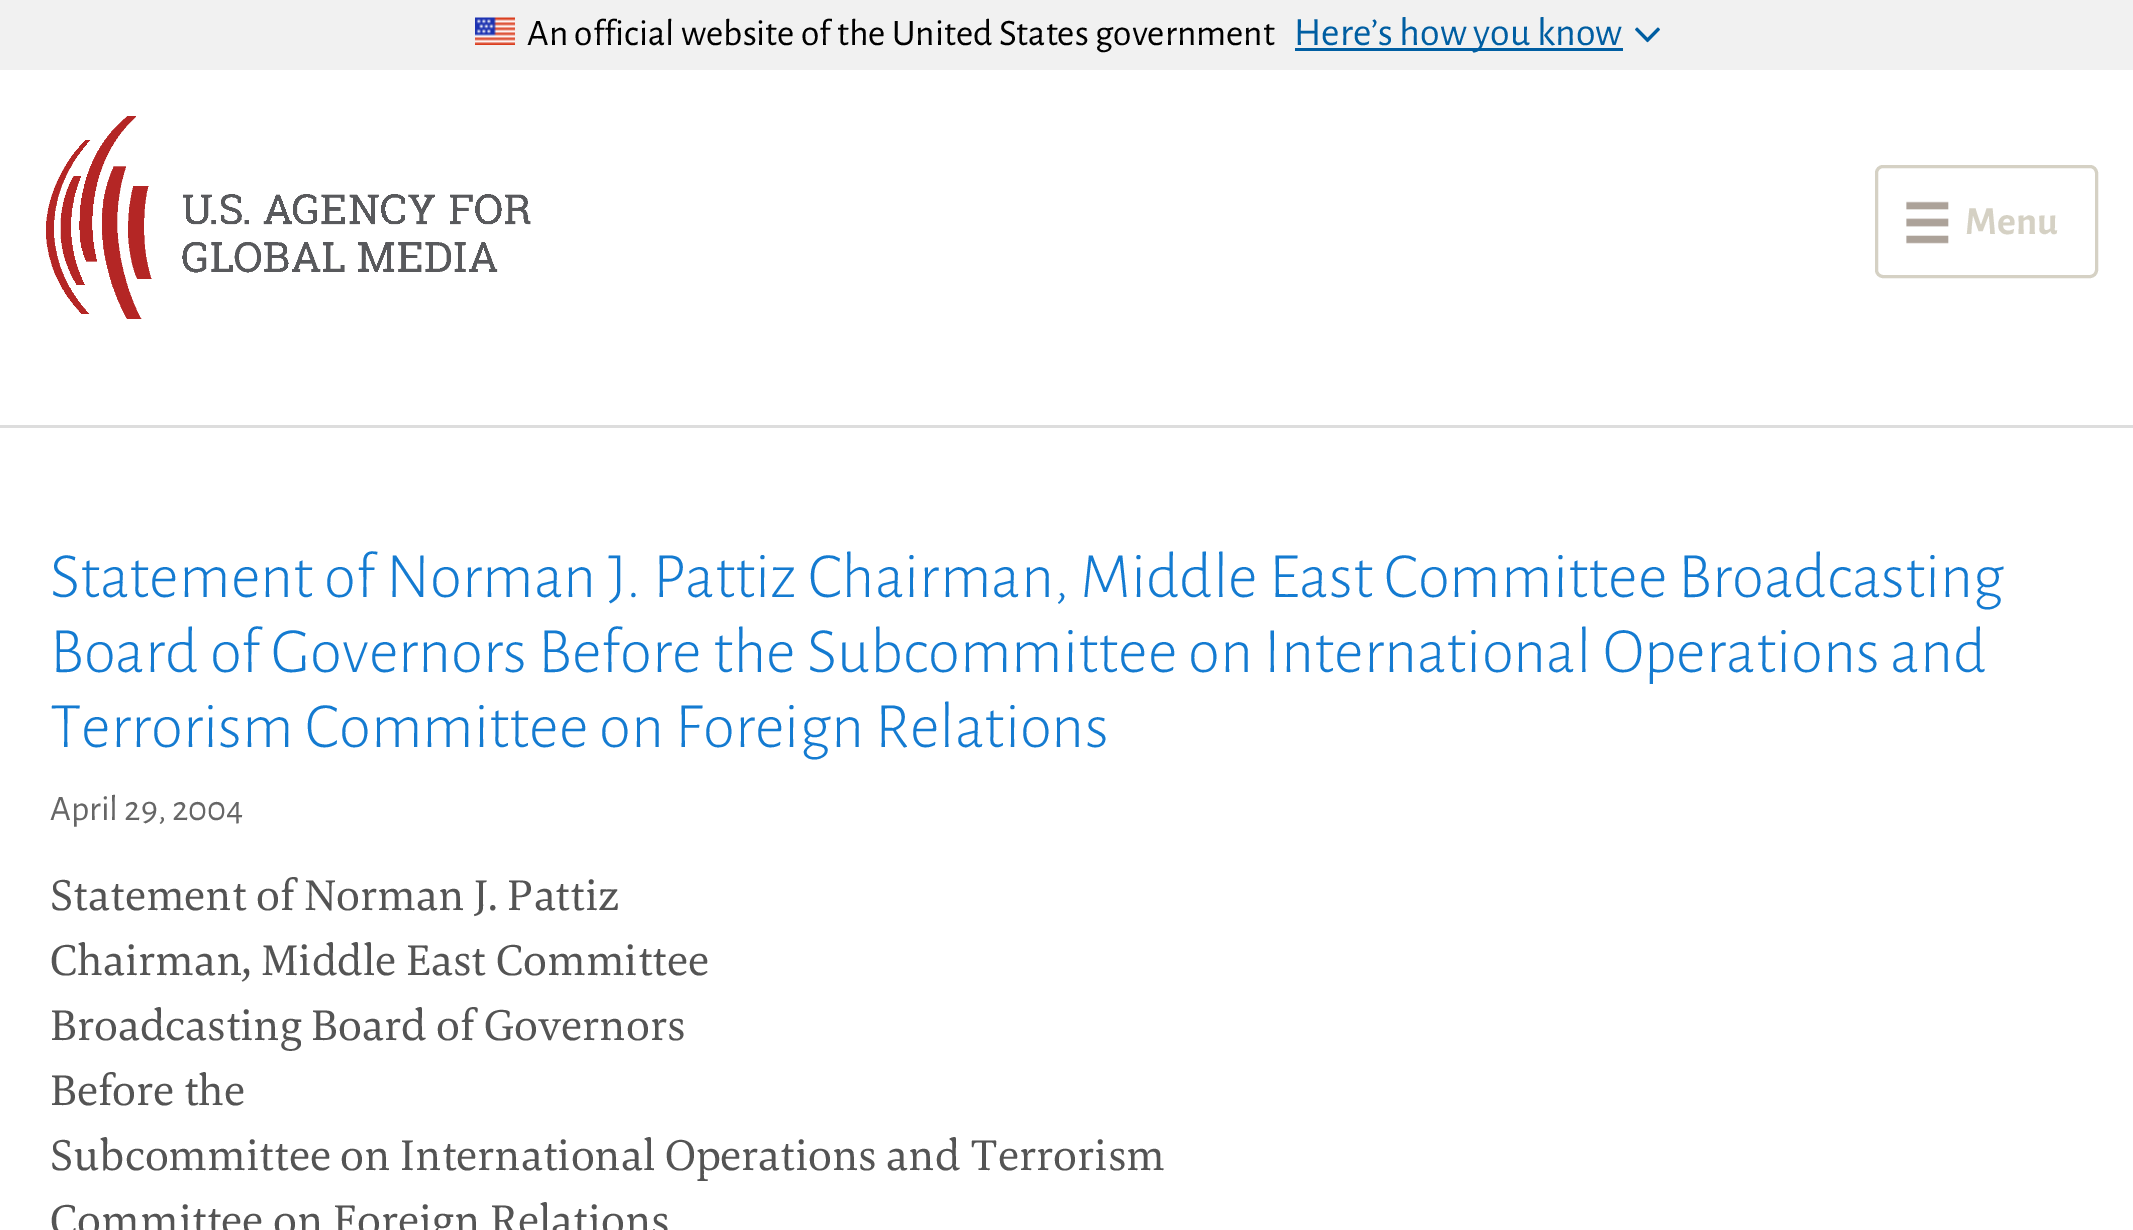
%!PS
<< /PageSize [2133 1230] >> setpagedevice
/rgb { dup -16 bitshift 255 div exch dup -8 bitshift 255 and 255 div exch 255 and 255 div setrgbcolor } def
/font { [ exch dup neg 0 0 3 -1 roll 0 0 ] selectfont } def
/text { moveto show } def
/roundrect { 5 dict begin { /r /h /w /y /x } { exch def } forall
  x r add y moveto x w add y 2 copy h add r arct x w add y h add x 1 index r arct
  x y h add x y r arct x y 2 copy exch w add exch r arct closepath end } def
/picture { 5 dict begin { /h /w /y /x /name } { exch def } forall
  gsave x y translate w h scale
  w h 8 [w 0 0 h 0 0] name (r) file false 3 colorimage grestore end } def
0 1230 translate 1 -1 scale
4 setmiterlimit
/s1 { /AlegreyaSans-Regular 37.5 font 16#000000 rgb } def
/s2 { /AlegreyaSans-Regular 40 font 16#005EA2 rgb } def
/s3 { /AlegreyaSans-Bold 40 font 16#D5D1C4 rgb } def
/s4 { /AlegreyaSans-Light 65 font 16#147BD1 rgb } def
/s5 { /AlegreyaSans-Regular 36 font 16#666666 rgb } def
/s6 { /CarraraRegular-Regular 45 font 16#545454 rgb } def
16#FFFFFF rgb
0 0 2133 1230 rectfill
16#F1F1F1 rgb
0 0 2133 70 rectfill
(pic1.raw) 475 17 40 28 picture
s1
(An official website of the United States government) 527 45 text
16#005EA2 rgb
1295 48 328 3 rectfill
s2
(Here’s how you know) 1294 45 text
(pic2.raw) 1635 27 25 16 picture
(pic3.raw) 46 116 485 203 picture
16#DDDDDD rgb
0 425 2133 3 rectfill
(pic4.raw) 1906 201 43 43 picture
16#D5D1C4 rgb
3 setlinewidth
1876.5 166.5 220 110 6.5 roundrect stroke
s3
(Menu) 1965 234 text
s4
(Statement of Norman J. Pattiz Chairman, Middle East Committee Broadcasting) 50 597 text
(Board of Governors Before the Subcommittee on International Operations and) 50 672 text
(Terrorism Committee on Foreign Relations) 50 747 text
s5
(April 29, 2004) 50 820 text
s6
(Statement of Norman J. Pattiz) 50 910 text
(Chairman, Middle East Committee) 50 975 text
(Broadcasting Board of Governors) 50 1040 text
(Before the) 50 1105 text
(Subcommittee on International Operations and Terrorism) 50 1170 text
(Committee on Foreign Relations) 50 1235 text
showpage
